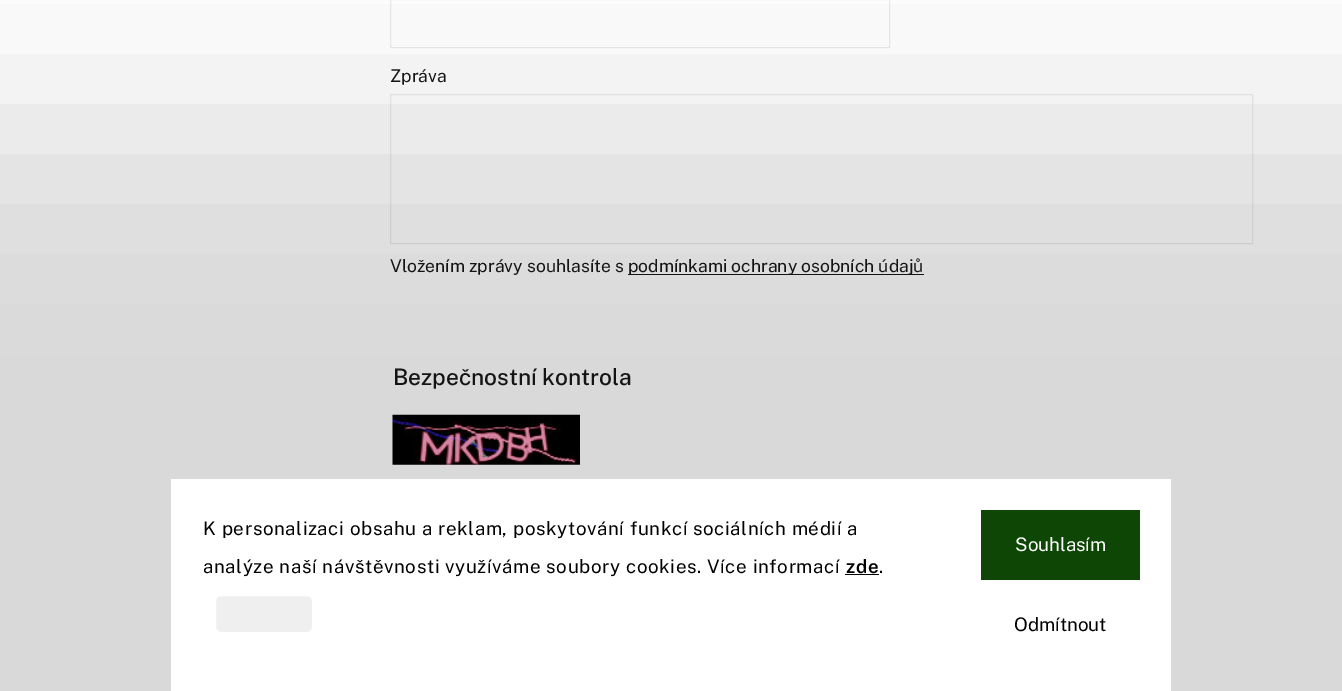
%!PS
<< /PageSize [1342 691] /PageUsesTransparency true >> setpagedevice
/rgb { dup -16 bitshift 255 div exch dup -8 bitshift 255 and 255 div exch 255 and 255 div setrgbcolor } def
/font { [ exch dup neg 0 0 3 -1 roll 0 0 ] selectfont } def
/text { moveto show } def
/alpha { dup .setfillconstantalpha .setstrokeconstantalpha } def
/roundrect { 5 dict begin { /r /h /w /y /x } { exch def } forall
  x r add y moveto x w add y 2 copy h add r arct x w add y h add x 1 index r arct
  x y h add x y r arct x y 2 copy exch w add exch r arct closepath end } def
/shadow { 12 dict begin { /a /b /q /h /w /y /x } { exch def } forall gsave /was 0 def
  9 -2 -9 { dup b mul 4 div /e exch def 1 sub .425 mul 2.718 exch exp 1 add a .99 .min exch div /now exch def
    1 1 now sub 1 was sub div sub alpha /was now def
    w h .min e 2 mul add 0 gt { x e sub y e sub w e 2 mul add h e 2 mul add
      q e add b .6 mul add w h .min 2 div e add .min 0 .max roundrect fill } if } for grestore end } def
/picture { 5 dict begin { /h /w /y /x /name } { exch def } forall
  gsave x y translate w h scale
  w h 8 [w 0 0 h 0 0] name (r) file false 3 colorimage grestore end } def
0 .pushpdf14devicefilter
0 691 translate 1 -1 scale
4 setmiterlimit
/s1 { /PublicSans-Regular 17.5 font 16#171717 rgb } def
/s2 { /PublicSans-Medium 22.75 font 16#171717 rgb } def
/s3 { /PublicSans-Regular 18.75 font 16#FFFFFF rgb } def
/s4 { /PublicSans-Regular 18.75 font 16#000000 rgb } def
16#FFFFFF rgb
0 0 1342 691 rectfill
16#EBEBEB rgb
390.5 -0.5 499 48 rectstroke
s1
(Zpráva) 390 82 text
16#EBEBEB rgb
390.5 94.5 862 149 rectstroke
s1
(Vložením zprávy souhlasíte s) 390 272 text
628 274 296 1 rectfill
(podmínkami ochrany osobních údajů) 628 272 text
s2
(Bezpečnostní kontrola) 393 385 text
(pic1.raw) 392 414 188 51 picture
16#000000 rgb
-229 129 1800 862 0 100 0.15 shadow
16#FFFFFF rgb
171 479 1000 212 rectfill
/PublicSans-Regular 18.75 font
16#000000 rgb
203 535 moveto 0.62 0 (K personalizaci obsahu a reklam, poskytování funkcí sociálních médií a) ashow
203 573 moveto 0.62 0 (analýze naší návštěvnosti využíváme soubory cookies. Více informací) ashow
/PublicSans-SemiBold 18.75 font
846 573 moveto 0.62 0 (zde) ashow
845 574 34 1 rectfill
/PublicSans-Regular 18.75 font
879 573 moveto 0.62 0 (.) ashow
16#EFEFEF rgb
215.5 595.5 97 37 5.5 roundrect gsave fill grestore
16#FFFFFF rgb
stroke
16#0E4606 rgb
981 510 159 70 rectfill
s3
(Souhlasím) 1015 551 text
s4
(Odmítnout) 1014 631 text
.poppdf14devicefilter showpage
